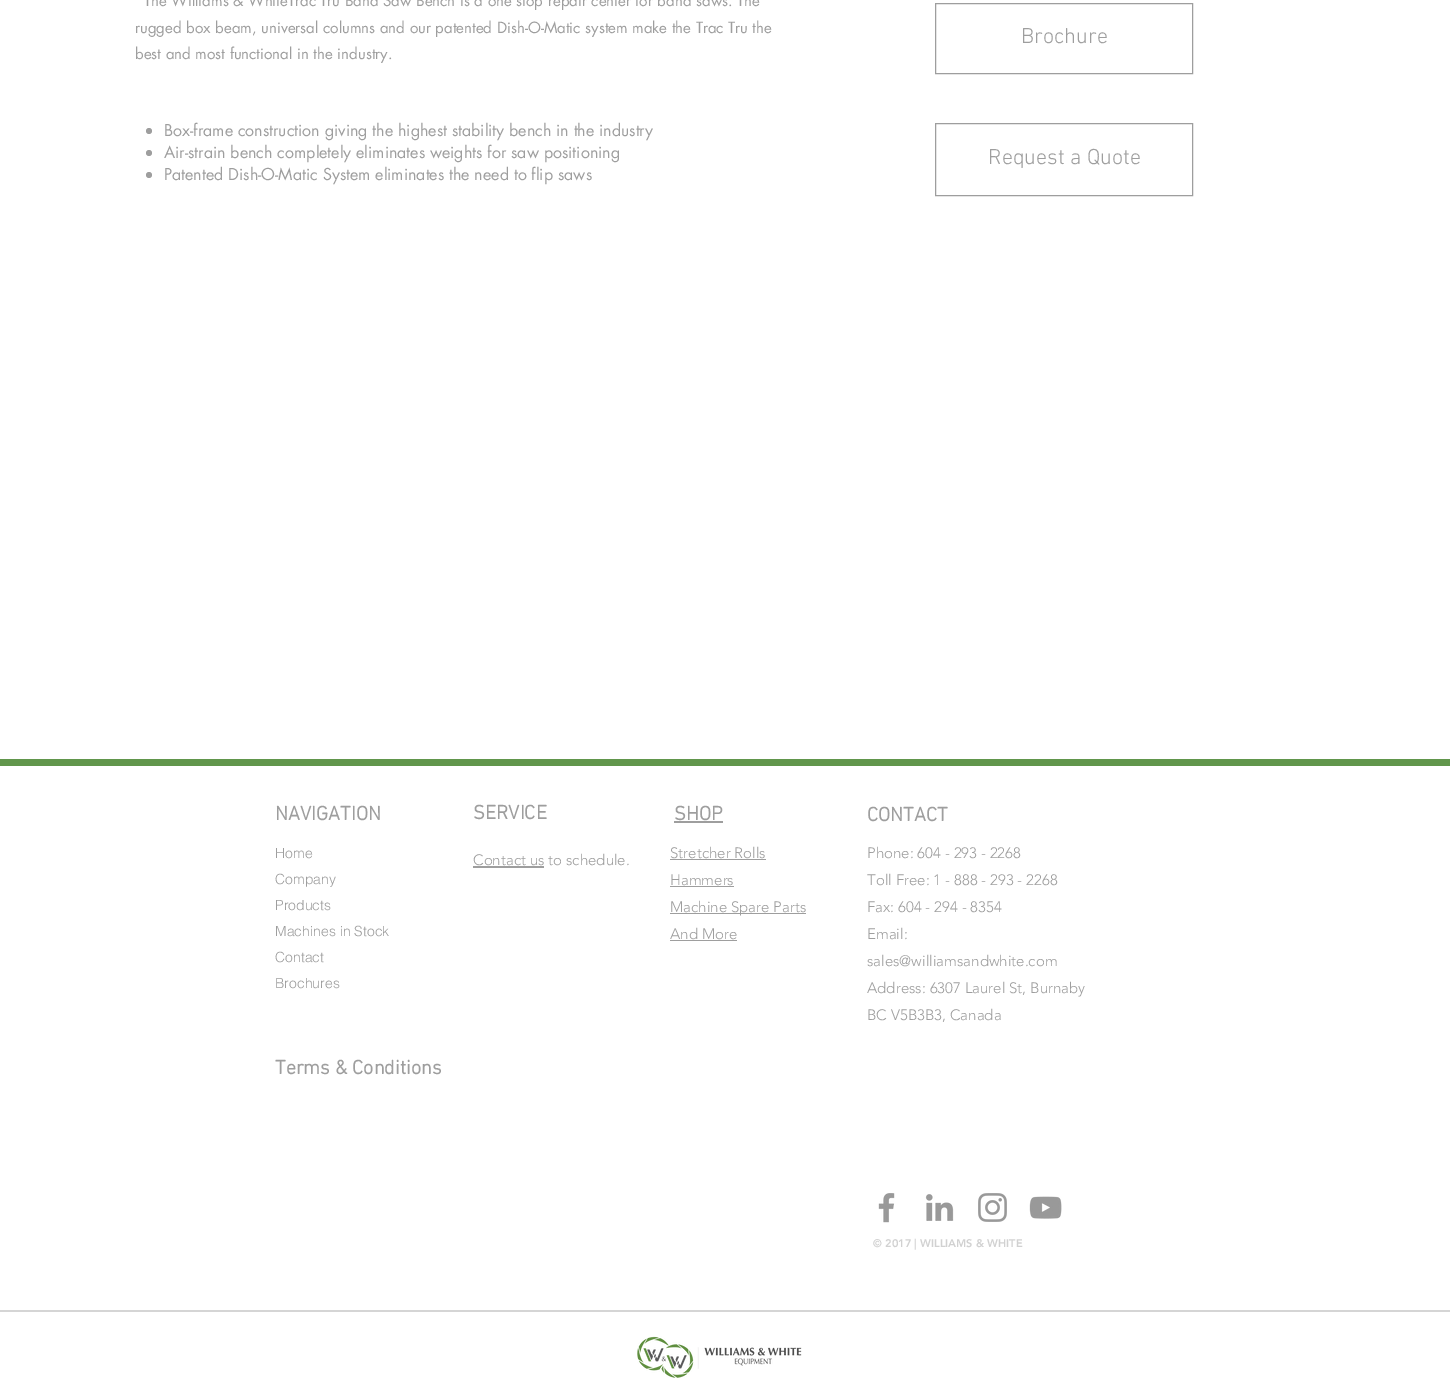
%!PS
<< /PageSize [1450 1380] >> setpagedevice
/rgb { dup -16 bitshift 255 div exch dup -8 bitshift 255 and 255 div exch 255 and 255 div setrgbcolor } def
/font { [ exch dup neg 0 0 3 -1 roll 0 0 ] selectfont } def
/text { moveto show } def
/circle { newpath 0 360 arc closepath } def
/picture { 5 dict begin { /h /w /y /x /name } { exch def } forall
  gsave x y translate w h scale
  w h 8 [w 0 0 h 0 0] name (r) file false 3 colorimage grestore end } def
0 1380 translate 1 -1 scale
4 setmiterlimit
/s1 { /futura-Regular 15 font 16#9E9E9E rgb } def
/s2 { /futura-Regular 16 font 16#9E9E9E rgb } def
/s3 { /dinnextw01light-Light 22 font 16#9E9E9E rgb } def
/s4 { /dinnextw01light-Bold 20 font 16#9E9E9E rgb } def
/s5 { /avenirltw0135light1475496-Light 15 font 16#9E9E9E rgb } def
/s6 { /helvetica-Light 14 font 16#9E9E9E rgb } def
/s7 { /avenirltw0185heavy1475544-Black 11 font 16#D1D1D1 rgb } def
16#FFFFFF rgb
0 0 1450 1380 rectfill
s1
(The Williams & WhiteTrac Tru Band Saw Bench is a one stop repair center for band saws. The) 144 6 text
(rugged box beam, universal columns and our patented Dish-O-Matic system make the Trac Tru the) 135 33 text
(best and most functional in the industry.) 135 59 text
149 131 3 circle fill
s2
(Box-frame construction giving the highest stability bench in the industry) 164 136 text
149 153 3 circle fill
(Air-strain bench completely eliminates weights for saw positioning) 164 158 text
149 175 3 circle fill
(Patented Dish-O-Matic System eliminates the need to flip saws) 164 180 text
935.5 3.5 257 70 rectstroke
s3
(Brochure) 1021 43 text
935.5 123.5 257 72 rectstroke
(Request a Quote) 988 164 text
16#61964C rgb
0 759 1450 7 rectfill
s4
(NAVIGATION) 275 820 text
(SERVICE) 473 819 text
s5
(Contact us to schedule.) 473 865 text
473 866 71 2 rectfill
s4
(SHOP) 674 820 text
674 821 49 2 rectfill
(CONTACT) 867 821 text
s6
(Home) 275 858 text
(Company) 275 884 text
(Products) 275 910 text
(Machines in Stock) 275 936 text
(Contact) 275 962 text
(Brochures) 275 988 text
s5
(Stretcher Rolls) 670 858 text
670 859 96 1 rectfill
(Hammers) 670 885 text
670 886 64 1 rectfill
670 913 136 1 rectfill
(Machine Spare Parts) 670 912 text
(And More) 670 939 text
670 940 67 1 rectfill
(Phone: 604 - 293 - 2268) 867 858 text
(Toll Free: 1 - 888 - 293 - 2268) 867 885 text
(Fax: 604 - 294 - 8354) 867 912 text
(Email:) 867 939 text
(sales@williamsandwhite.com) 867 966 text
(Address: 6307 Laurel St, Burnaby) 867 993 text
(BC V5B3B3, Canada) 867 1020 text
s4
(Terms & Conditions) 275 1074 text
(pic1.raw) 878 1193 17 30 picture
(pic2.raw) 925 1194 29 27 picture
(pic3.raw) 978 1193 29 29 picture
(pic4.raw) 1029 1196 33 23 picture
s7
(© 2017 | WILLIAMS & WHITE) 873 1247 text
16#D5D5D5 rgb
0 1310 1450 2 rectfill
(pic5.raw) 637 1336 165 42 picture
showpage
